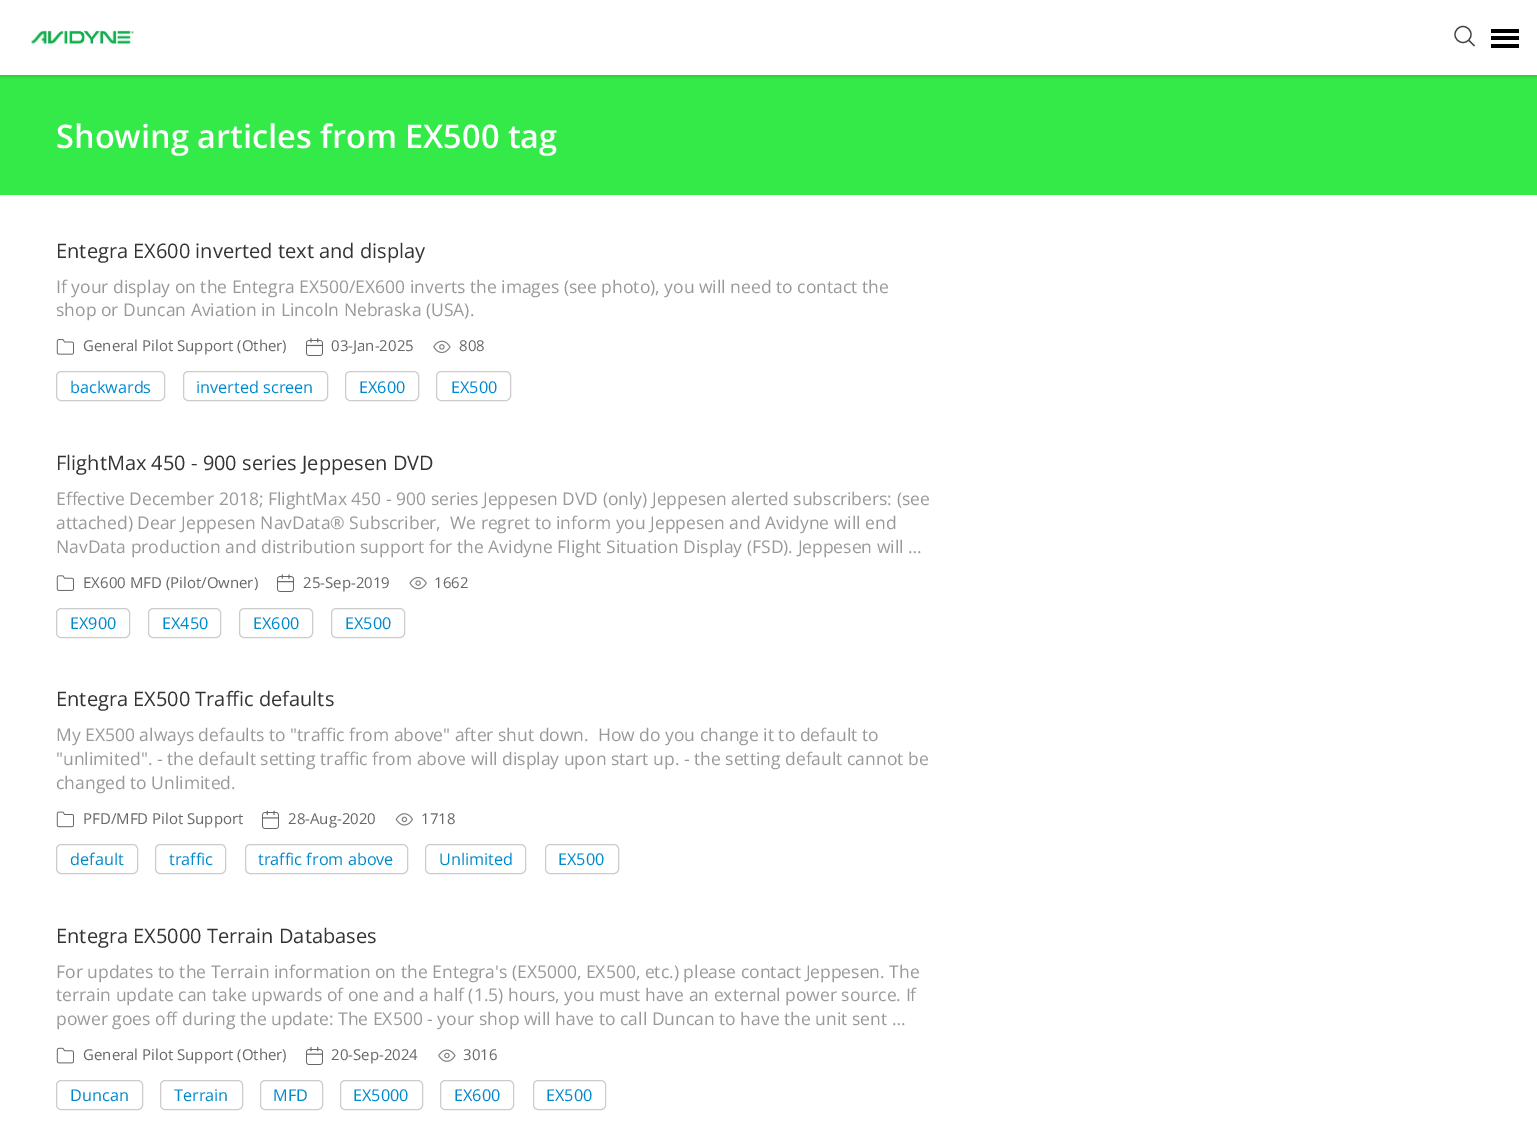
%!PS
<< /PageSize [1537 1138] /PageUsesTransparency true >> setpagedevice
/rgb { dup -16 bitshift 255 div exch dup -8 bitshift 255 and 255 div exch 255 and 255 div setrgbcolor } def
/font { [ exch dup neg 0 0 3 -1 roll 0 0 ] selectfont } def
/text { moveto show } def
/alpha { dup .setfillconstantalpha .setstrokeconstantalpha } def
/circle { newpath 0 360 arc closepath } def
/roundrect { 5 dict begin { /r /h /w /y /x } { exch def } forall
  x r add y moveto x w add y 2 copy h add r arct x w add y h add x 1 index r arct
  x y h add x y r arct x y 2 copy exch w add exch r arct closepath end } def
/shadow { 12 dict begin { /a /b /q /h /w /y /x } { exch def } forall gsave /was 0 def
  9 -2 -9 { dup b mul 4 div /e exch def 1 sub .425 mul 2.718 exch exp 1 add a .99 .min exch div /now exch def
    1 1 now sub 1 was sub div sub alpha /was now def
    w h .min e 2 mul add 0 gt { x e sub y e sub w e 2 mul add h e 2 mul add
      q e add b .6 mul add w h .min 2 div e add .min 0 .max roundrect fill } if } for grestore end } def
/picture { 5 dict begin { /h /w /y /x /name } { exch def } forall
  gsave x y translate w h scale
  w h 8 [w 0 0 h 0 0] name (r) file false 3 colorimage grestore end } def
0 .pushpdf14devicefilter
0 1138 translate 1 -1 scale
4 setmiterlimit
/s1 { /OpenSans-SemiBold 32.5 font 16#FFFFFF rgb } def
/s2 { /OpenSans-Regular 20 font 16#333333 rgb } def
/s3 { /OpenSans-Regular 17.5 font 16#999999 rgb } def
/s4 { /OpenSans-Regular 15 font 16#666666 rgb } def
/s5 { /OpenSans-Regular 16.25 font 16#0088CC rgb } def
16#FFFFFF rgb
0 0 1537 1138 rectfill
16#33EA48 rgb
0 75 1537 120 rectfill
gsave
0 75 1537 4 rectclip
16#000000 rgb
0 1 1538 75 0 2 0.2 shadow
grestore
(pic1.raw) 31 30 103 15 picture
16#424242 rgb
1.2 setlinewidth
1463 34.5 8 circle stroke
2 setlinecap
1469.5 41 moveto 1474 45.5 lineto stroke
16#000000 rgb
1491 29 28 4 rectfill
1491 36 28 4 rectfill
1491 44 28 4 rectfill
s1
(Showing articles from EX500 tag) 56 148 text
s2
(Entegra EX600 inverted text and display) 56 258 text
s3
(If your display on the Entegra EX500/EX600 inverts the images \(see photo\), you will need to contact the) 56 293 text
(shop or Duncan Aviation in Lincoln Nebraska \(USA\).) 56 316 text
(pic2.raw) 56 339 18 16 picture
s4
(General Pilot Support \(Other\)) 83 351 text
(pic3.raw) 306 338 17 18 picture
(03-Jan-2025) 331 351 text
(pic4.raw) 433 340 18 14 picture
(808) 459 351 text
16#CCCCCC rgb
1 setlinewidth
0 setlinecap
56.5 371.5 108 29 4.5 roundrect stroke
s5
(backwards) 70 393 text
16#CCCCCC rgb
183.5 371.5 144 29 4.5 roundrect stroke
s5
(inverted screen) 196 393 text
16#CCCCCC rgb
345.5 371.5 73 29 4.5 roundrect stroke
s5
(EX600) 359 393 text
16#CCCCCC rgb
436.5 371.5 74 29 4.5 roundrect stroke
s5
(EX500) 451 393 text
s2
(FlightMax 450 - 900 series Jeppesen DVD) 56 470 text
s3
(Effective December 2018; FlightMax 450 - 900 series Jeppesen DVD \(only\) Jeppesen alerted subscribers: \(see) 56 505 text
(attached\) Dear Jeppesen NavData® Subscriber,) 56 529 text
(We regret to inform you Jeppesen and Avidyne will end) 450 529 text
(NavData production and distribution support for the Avidyne Flight Situation Display \(FSD\). Jeppesen will …) 56 553 text
(pic5.raw) 56 575 18 16 picture
s4
(EX600 MFD \(Pilot/Owner\)) 83 588 text
(pic6.raw) 277 574 17 18 picture
(25-Sep-2019) 303 588 text
(pic7.raw) 409 576 18 14 picture
(1662) 434 588 text
16#CCCCCC rgb
56.5 608.5 73 29 4.5 roundrect stroke
s5
(EX900) 70 629 text
16#CCCCCC rgb
148.5 608.5 72 29 4.5 roundrect stroke
s5
(EX450) 162 629 text
16#CCCCCC rgb
239.5 608.5 73 29 4.5 roundrect stroke
s5
(EX600) 253 629 text
16#CCCCCC rgb
331.5 608.5 73 29 4.5 roundrect stroke
s5
(EX500) 345 629 text
s2
(Entegra EX500 Traffic defaults) 56 706 text
s3
(My EX500 always defaults to "traffic from above" after shut down.  How do you change it to default to) 56 741 text
("unlimited". - the default setting traffic from above will display upon start up. - the setting default cannot be) 56 765 text
(changed to Unlimited.) 56 789 text
(pic8.raw) 56 811 18 17 picture
s4
(PFD/MFD Pilot Support) 83 824 text
(pic9.raw) 262 810 17 19 picture
(28-Aug-2020) 288 824 text
(pic10.raw) 395 813 18 13 picture
(1718) 421 824 text
16#CCCCCC rgb
56.5 844.5 81 29 4.5 roundrect stroke
s5
(default) 70 865 text
16#CCCCCC rgb
155.5 844.5 70 29 4.5 roundrect stroke
s5
(traffic) 169 865 text
16#CCCCCC rgb
245.5 844.5 162 29 4.5 roundrect stroke
s5
(traffic from above) 258 865 text
16#CCCCCC rgb
425.5 844.5 100 29 4.5 roundrect stroke
s5
(Unlimited) 439 865 text
16#CCCCCC rgb
545.5 844.5 73 29 4.5 roundrect stroke
s5
(EX500) 558 865 text
s2
(Entegra EX5000 Terrain Databases) 56 943 text
s3
(For updates to the Terrain information on the Entegra's \(EX5000, EX500, etc.\) please contact Jeppesen. The) 56 978 text
(terrain update can take upwards of one and a half \(1.5\) hours, you must have an external power source. If) 56 1001 text
(power goes off during the update: The EX500 - your shop will have to call Duncan to have the unit sent …) 56 1025 text
(pic11.raw) 56 1047 18 17 picture
s4
(General Pilot Support \(Other\)) 83 1060 text
(pic12.raw) 306 1046 17 19 picture
(20-Sep-2024) 331 1060 text
(pic13.raw) 438 1049 18 13 picture
(3016) 463 1060 text
16#CCCCCC rgb
56.5 1080.5 86 29 4.5 roundrect stroke
s5
(Duncan) 70 1101 text
16#CCCCCC rgb
160.5 1080.5 82 29 4.5 roundrect stroke
s5
(Terrain) 174 1101 text
16#CCCCCC rgb
260.5 1080.5 62 29 4.5 roundrect stroke
s5
(MFD) 273 1101 text
16#CCCCCC rgb
340.5 1080.5 82 29 4.5 roundrect stroke
s5
(EX5000) 353 1101 text
16#CCCCCC rgb
440.5 1080.5 73 29 4.5 roundrect stroke
s5
(EX600) 454 1101 text
16#CCCCCC rgb
533.5 1080.5 72 29 4.5 roundrect stroke
s5
(EX500) 546 1101 text
.poppdf14devicefilter showpage
